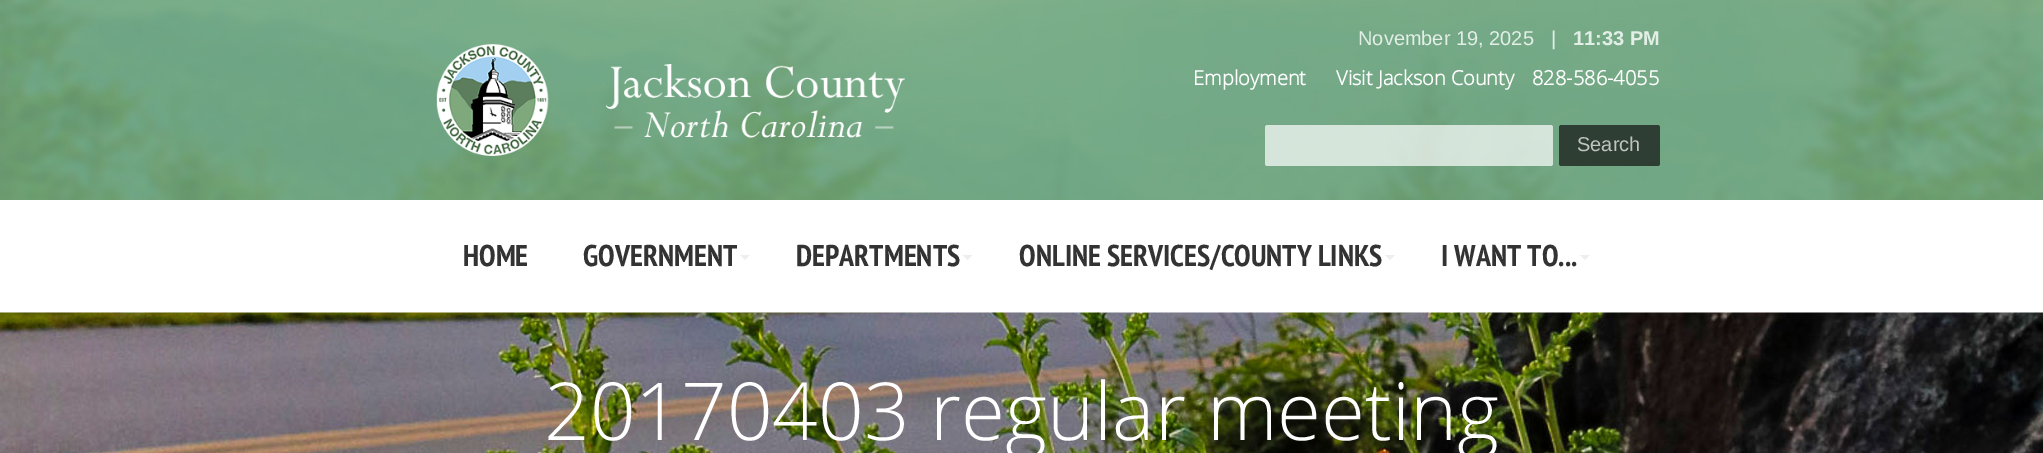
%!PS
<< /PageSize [2043 453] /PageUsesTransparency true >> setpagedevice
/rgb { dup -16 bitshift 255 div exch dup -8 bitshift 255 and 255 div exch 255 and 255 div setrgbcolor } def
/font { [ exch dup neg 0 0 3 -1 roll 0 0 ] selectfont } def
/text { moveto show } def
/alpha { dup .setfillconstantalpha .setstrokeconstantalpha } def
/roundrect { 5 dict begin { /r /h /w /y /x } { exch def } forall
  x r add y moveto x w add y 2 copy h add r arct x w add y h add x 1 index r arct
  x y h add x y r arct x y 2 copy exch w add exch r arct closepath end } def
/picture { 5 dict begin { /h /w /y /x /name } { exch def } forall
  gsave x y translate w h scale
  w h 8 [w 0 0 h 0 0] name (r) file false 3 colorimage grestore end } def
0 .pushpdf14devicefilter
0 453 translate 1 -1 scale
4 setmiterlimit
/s1 { /LiberationSans-Regular 20 font 16#E3EEE7 rgb } def
/s2 { /LiberationSans-Bold 20 font 16#E3EEE7 rgb } def
/s3 { /OpenSans-Bold 20 font 16#FFFFFF rgb } def
/s4 { /LiberationSans-Regular 20 font 16#C0C5C2 rgb } def
/s5 { /PTSansNarrow-Bold 30 font 16#333333 rgb } def
/s6 { /OpenSans-Light 80 font 16#FFFFFF rgb } def
16#FFFFFF rgb
0 0 2043 453 rectfill
(pic1.raw) 0 0 2043 200 picture
s1
(November 19, 2025) 1358 45 text
(|) 1551 45 text
s2
(11:33 PM) 1573 45 text
(pic2.raw) 436 44 469 112 picture
s3
(Employment) 1193 85 text
(Visit Jackson County) 1336 85 text
(828-586-4055) 1532 85 text
0.7 alpha
1265 125 288 41 2.5 roundrect fill
16#111111 rgb
1559 125 101 41 2.5 roundrect fill
1 alpha
s4
(Search) 1577 151 text
s5
(HOME) 463 266 text
(GOVERNMENT) 583 266 text
16#EEEEEE rgb
740 255 moveto 750 255 lineto 745 260 lineto closepath fill
s5
(DEPARTMENTS) 796 266 text
16#EEEEEE rgb
962.5 255 moveto 972.5 255 lineto 967.5 260 lineto closepath fill
s5
(ONLINE SERVICES/COUNTY LINKS) 1019 266 text
16#EEEEEE rgb
1385 255 moveto 1395 255 lineto 1390 260 lineto closepath fill
s5
(I WANT TO...) 1441 266 text
16#EEEEEE rgb
1580 255 moveto 1590 255 lineto 1585 260 lineto closepath fill
(pic3.raw) 0 312 2043 141 picture
s6
(20170403 regular meeting) 544 440 text
.poppdf14devicefilter showpage
